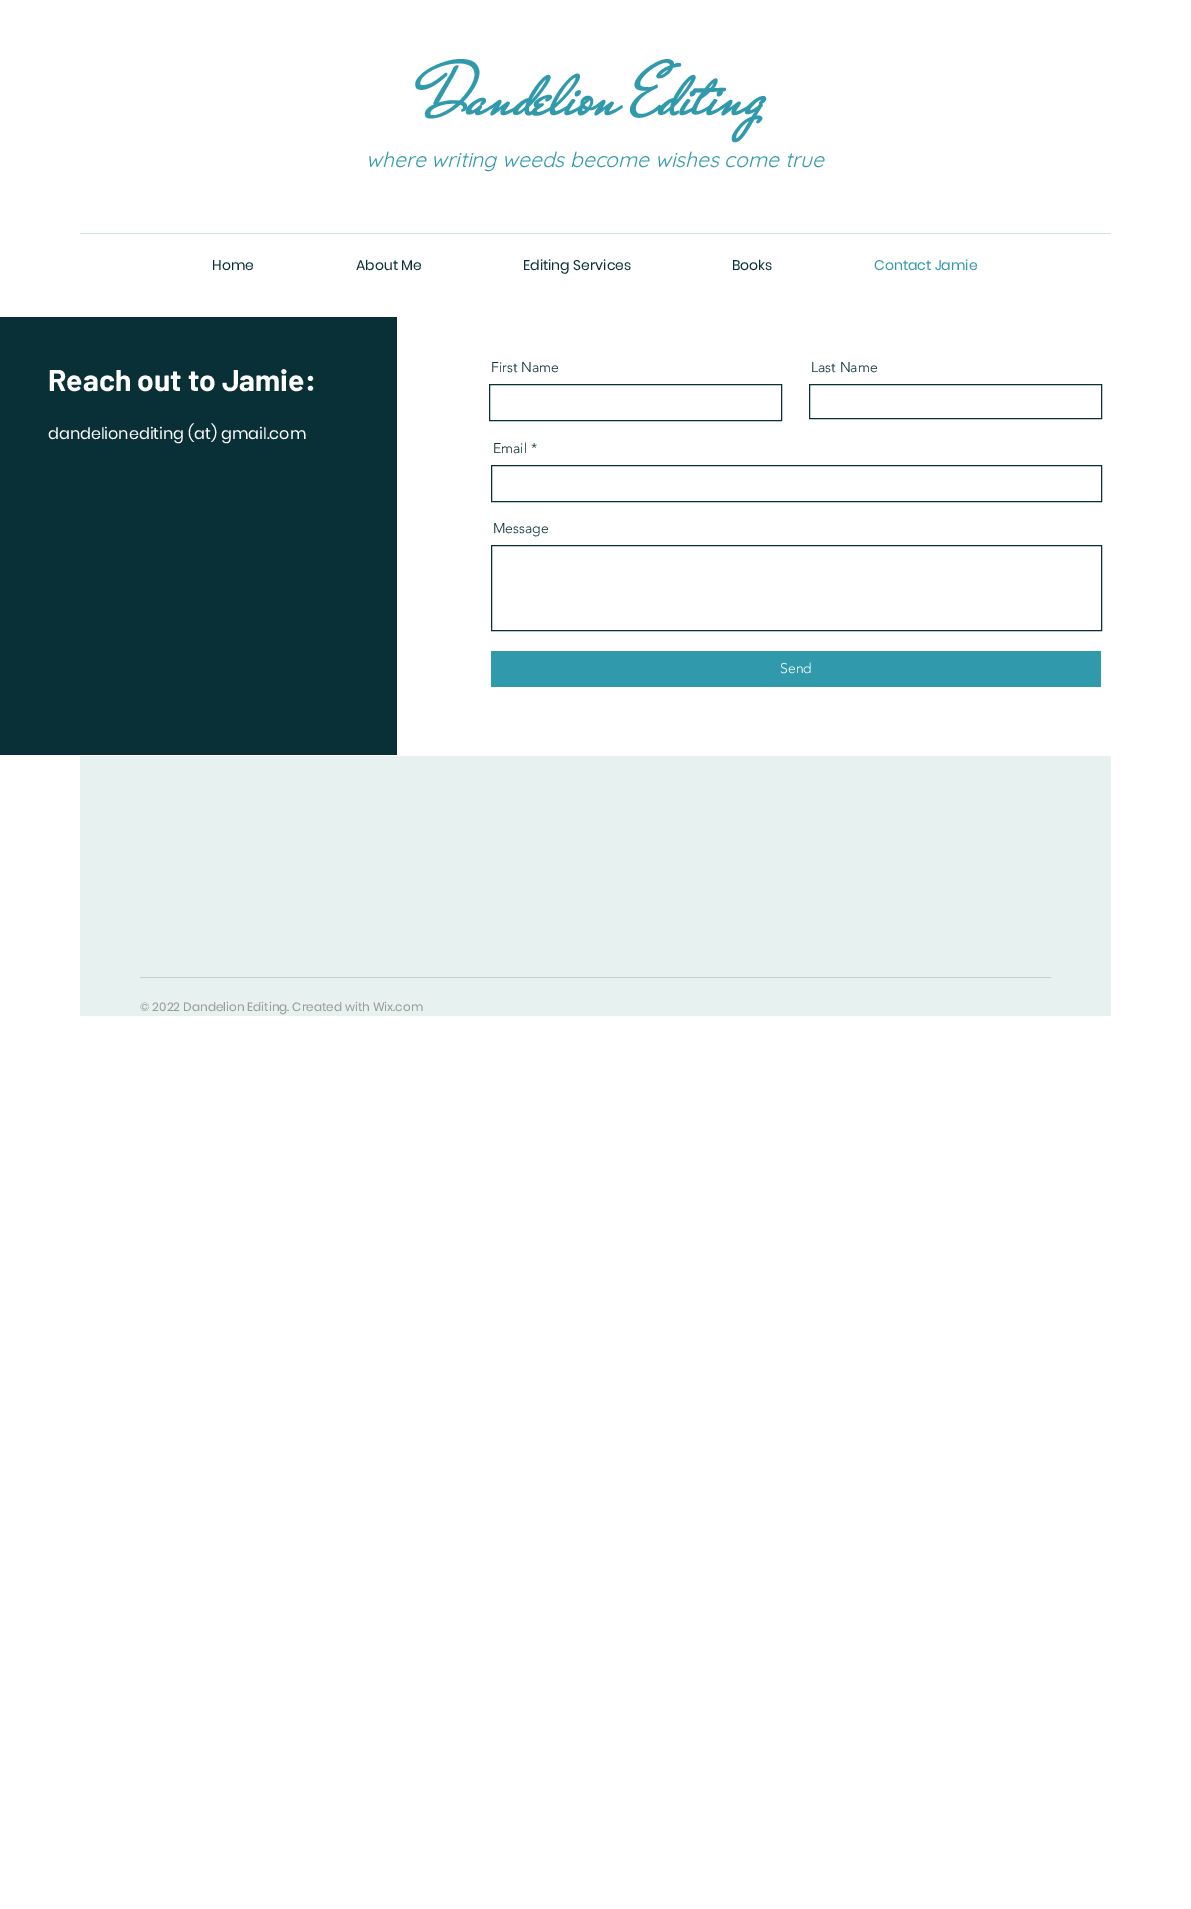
%!PS
<< /PageSize [1191 1909] >> setpagedevice
/rgb { dup -16 bitshift 255 div exch dup -8 bitshift 255 and 255 div exch 255 and 255 div setrgbcolor } def
/font { [ exch dup neg 0 0 3 -1 roll 0 0 ] selectfont } def
/text { moveto show } def
0 1909 translate 1 -1 scale
4 setmiterlimit
/s1 { /MrDeHaviland-Bold 72 font 16#309AAC rgb } def
/s2 { /Quicksand-Italic 21 font 16#309AAC rgb } def
/s3 { /Poppins-Regular 14 font 16#092F37 rgb } def
/s4 { /Poppins-Regular 14 font 16#309AAC rgb } def
/s5 { /Barlow-Bold 30 font 16#FFFFFF rgb } def
/s6 { /Poppins-Regular 16 font 16#FFFFFF rgb } def
/s7 { /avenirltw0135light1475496-Light 14 font 16#092F37 rgb } def
/s8 { /avenirltw0135light1475496-Light 14 font 16#FFFFFF rgb } def
/s9 { /Poppins-Regular 12 font 16#999997 rgb } def
16#FFFFFF rgb
0 0 1191 1909 rectfill
s1
(Dandelion Editing) 425 114 text
s2
(where writing weeds become wishes come true) 366 167 text
16#CCE5E9 rgb
80 233 1031 1 rectfill
s3
(Home) 212 270 text
(About Me) 356 270 text
(Editing Services) 523 270 text
(Books) 732 270 text
s4
(Contact Jamie) 874 270 text
16#092F37 rgb
0 317 397 438 rectfill
s5
(Reach out to Jamie:) 48 391 text
s6
(dandelionediting \(at\) gmail.com) 48 439 text
s7
(First Name) 491 372 text
489.5 384.5 292 36 rectstroke
(Last Name) 811 372 text
809.5 384.5 292 34 rectstroke
(Email *) 493 453 text
491.5 465.5 610 36 rectstroke
(Message) 493 533 text
491.5 545.5 610 85 rectstroke
16#309AAC rgb
491 651 610 36 rectfill
s8
(Send) 780 673 text
16#E7F1F0 rgb
80 756 1031 260 rectfill
16#C8CECC rgb
140 977 911 1 rectfill
s9
(© 2022 Dandelion Editing. Created with Wix.com) 140 1011 text
showpage
